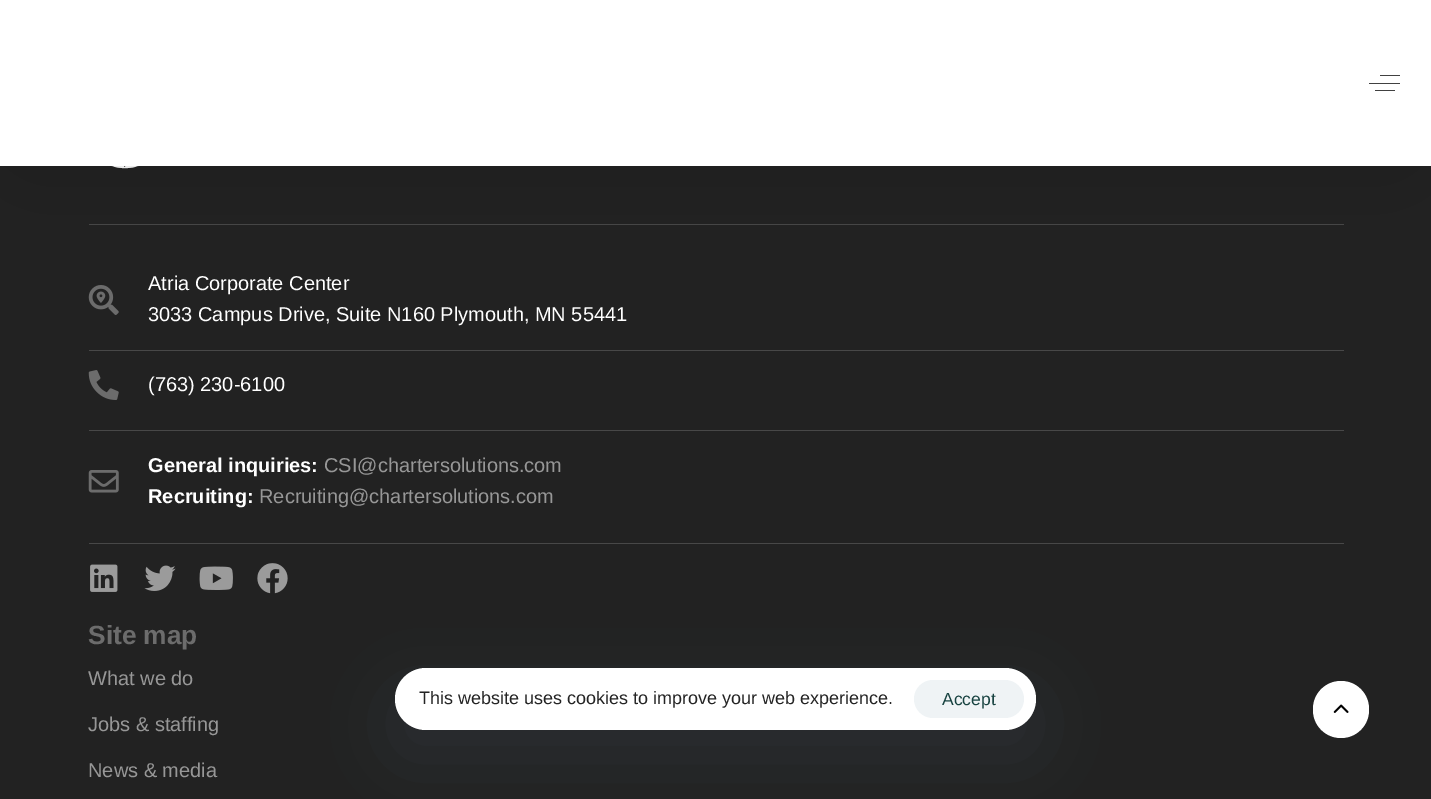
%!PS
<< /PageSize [1431 799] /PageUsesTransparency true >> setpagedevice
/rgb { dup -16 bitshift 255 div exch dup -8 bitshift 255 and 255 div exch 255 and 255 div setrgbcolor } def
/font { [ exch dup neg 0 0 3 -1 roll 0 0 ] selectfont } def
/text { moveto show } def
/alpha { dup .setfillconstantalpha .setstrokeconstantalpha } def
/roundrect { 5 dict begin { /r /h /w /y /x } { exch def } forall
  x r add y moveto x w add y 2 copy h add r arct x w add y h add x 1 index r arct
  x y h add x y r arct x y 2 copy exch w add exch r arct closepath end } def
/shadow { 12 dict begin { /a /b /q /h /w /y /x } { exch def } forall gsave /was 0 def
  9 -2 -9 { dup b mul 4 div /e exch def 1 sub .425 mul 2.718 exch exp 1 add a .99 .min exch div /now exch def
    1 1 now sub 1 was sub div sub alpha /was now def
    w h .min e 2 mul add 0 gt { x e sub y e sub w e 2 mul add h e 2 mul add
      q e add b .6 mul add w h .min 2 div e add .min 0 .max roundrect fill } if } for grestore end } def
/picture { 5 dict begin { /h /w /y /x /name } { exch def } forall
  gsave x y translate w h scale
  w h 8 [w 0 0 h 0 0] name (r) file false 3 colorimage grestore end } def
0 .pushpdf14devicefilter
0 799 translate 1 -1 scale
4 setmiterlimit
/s1 { /LiberationSans-Regular 20 font 16#FFFFFF rgb } def
/s2 { /LiberationSans-Bold 20 font 16#FFFFFF rgb } def
/s3 { /LiberationSans-Regular 20 font 16#979797 rgb } def
/s4 { /LiberationSans-Bold 26.25 font 16#6C6C6C rgb } def
/s5 { /LiberationSans-Regular 18 font 16#242424 rgb } def
/s6 { /LiberationSans-Regular 17.5 font 16#184341 rgb } def
16#222222 rgb
0 0 1431 799 rectfill
(pic1.raw) 111 166 28 3 picture
16#484848 rgb
89 224 1255 1 rectfill
(pic2.raw) 88 285 31 30 picture
16#000000 rgb
23 29 1381 116 0 56 0.25 shadow
16#FFFFFF rgb
0 0 1431 166 rectfill
16#414141 rgb
1380 75 20 1 rectfill
1369 83 31 1 rectfill
1375 90 20 1 rectfill
s1
(Atria Corporate Center) 148 290 text
(3033 Campus Drive, Suite N160 Plymouth, MN 55441) 148 321 text
16#484848 rgb
89 350 1255 1 rectfill
(pic3.raw) 88 370 31 30 picture
s1
(\(763\) 230-6100) 148 391 text
16#484848 rgb
89 430 1255 1 rectfill
(pic4.raw) 88 470 31 23 picture
s2
(General inquiries:) 148 472 text
s3
(CSI@chartersolutions.com) 324 472 text
s2
(Recruiting:) 148 503 text
s3
(Recruiting@chartersolutions.com) 259 503 text
16#484848 rgb
89 543 1255 1 rectfill
(pic5.raw) 90 564 28 28 picture
(pic6.raw) 144 565 32 26 picture
(pic7.raw) 199 566 34 24 picture
(pic8.raw) 257 563 31 31 picture
s4
(Site map) 88 644 text
s3
(What we do) 88 685 text
(Jobs & staffing) 88 731 text
(News & media) 88 777 text
16#FFFFFF rgb
1313 681 56 57 28 roundrect fill
(pic9.raw) 1333 704 16 9 picture
16#5C6B95 rgb
395 693 641 62 31 37.5 0.15 shadow
16#FFFFFF rgb
395 668 641 62 31 roundrect fill
s5
(This website uses cookies to improve your web experience.) 419 704 text
16#EFF3F5 rgb
914 680 110 38 19 roundrect fill
s6
(Accept) 942 705 text
.poppdf14devicefilter showpage
